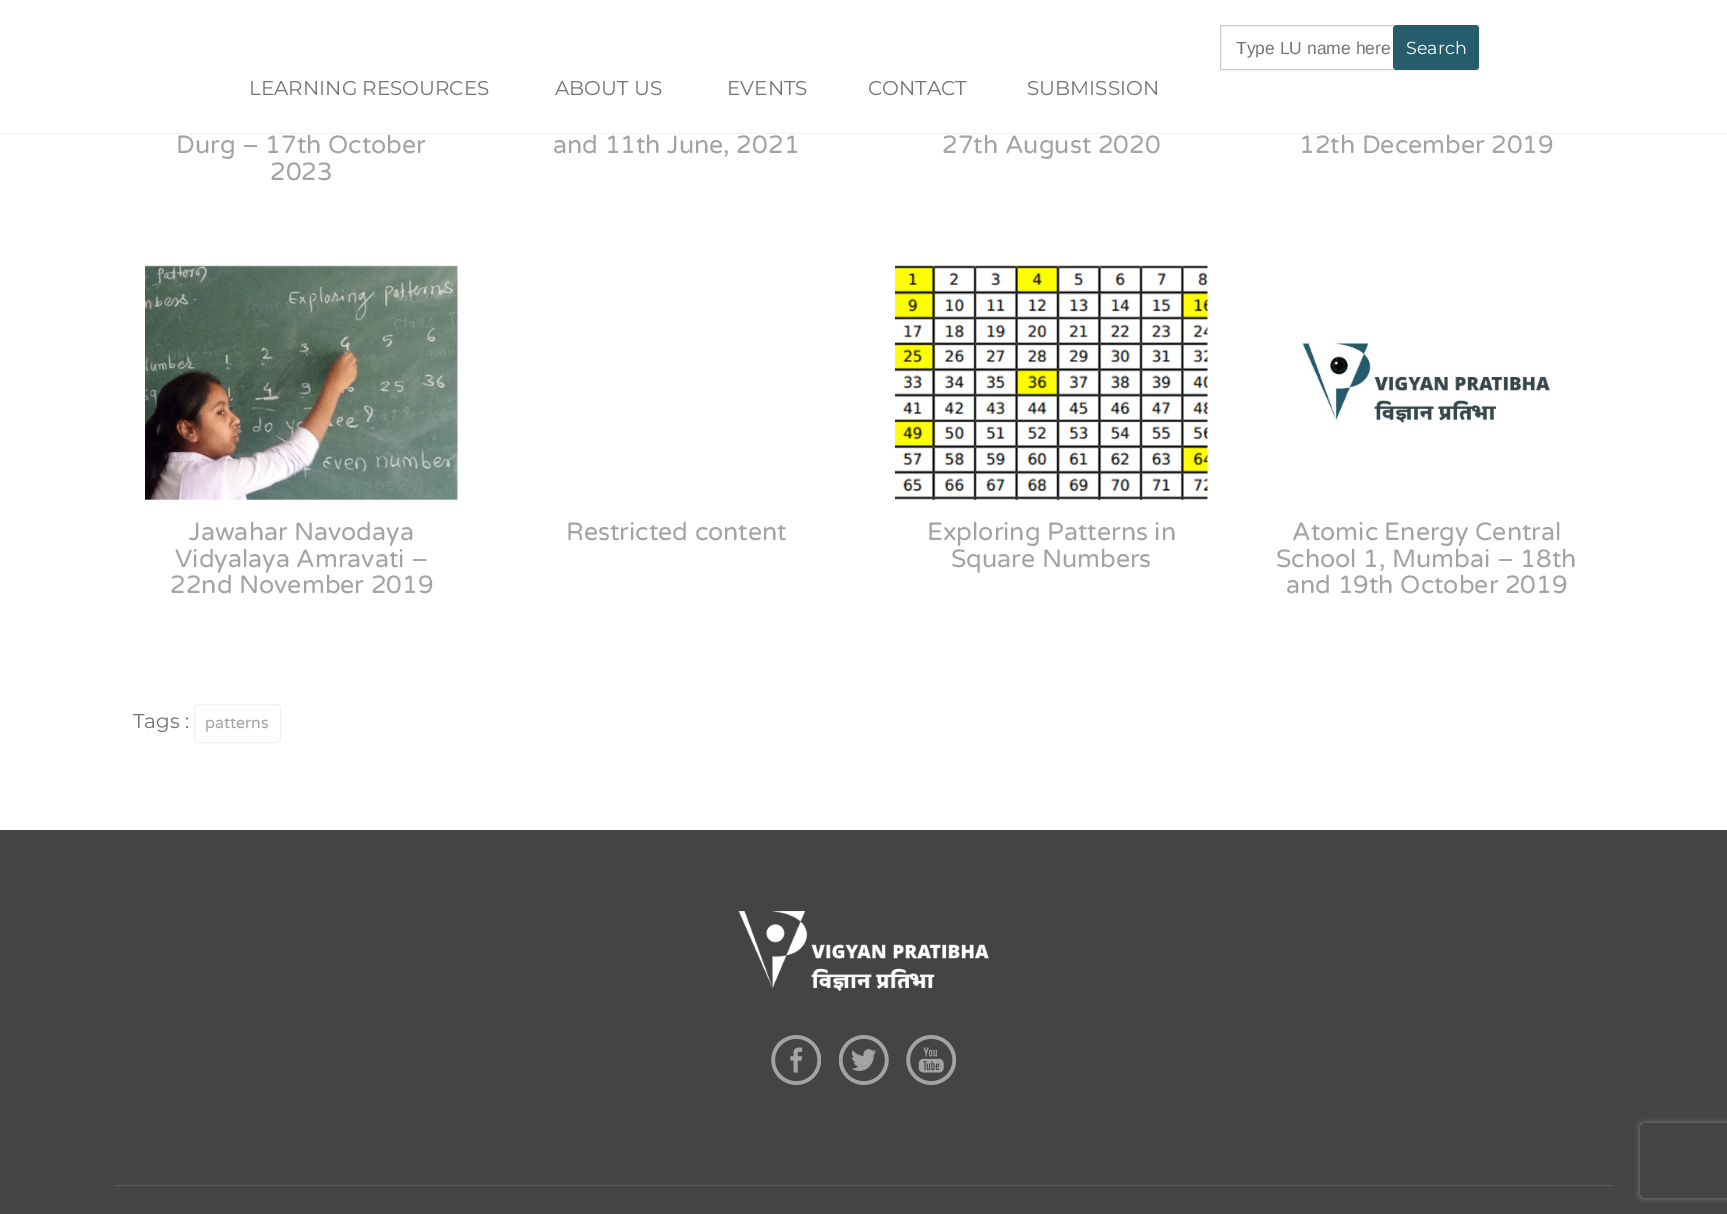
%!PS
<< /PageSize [1727 1214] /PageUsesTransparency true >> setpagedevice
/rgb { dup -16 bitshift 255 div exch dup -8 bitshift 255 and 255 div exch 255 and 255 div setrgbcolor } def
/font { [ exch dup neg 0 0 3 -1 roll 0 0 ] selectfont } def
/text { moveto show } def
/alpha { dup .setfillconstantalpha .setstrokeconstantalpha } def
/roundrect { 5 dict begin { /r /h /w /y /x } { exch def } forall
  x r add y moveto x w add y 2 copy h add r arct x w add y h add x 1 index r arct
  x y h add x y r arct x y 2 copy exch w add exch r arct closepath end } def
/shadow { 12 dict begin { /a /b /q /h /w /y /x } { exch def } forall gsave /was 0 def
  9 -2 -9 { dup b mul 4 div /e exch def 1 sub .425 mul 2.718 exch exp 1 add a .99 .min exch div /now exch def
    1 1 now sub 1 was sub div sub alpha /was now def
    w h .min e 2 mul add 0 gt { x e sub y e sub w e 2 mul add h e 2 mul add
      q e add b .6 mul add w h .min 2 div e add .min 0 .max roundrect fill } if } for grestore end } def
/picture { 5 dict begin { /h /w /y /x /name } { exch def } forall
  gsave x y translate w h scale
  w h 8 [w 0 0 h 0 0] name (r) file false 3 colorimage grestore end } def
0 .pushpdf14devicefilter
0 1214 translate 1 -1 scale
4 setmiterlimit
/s1 { /LiberationSans-Regular 17.5 font 16#727475 rgb } def
/s2 { /Montserrat-Regular 17.5 font 16#FFFFFF rgb } def
/s3 { /Montserrat-Regular 20 font 16#727475 rgb } def
/s4 { /VarelaRound-Regular 25 font 16#A3A3A3 rgb } def
/s5 { /VarelaRound-Regular 16 font 16#A3A3A3 rgb } def
16#FFFFFF rgb
0 0 1727 1214 rectfill
16#F1F1F1 rgb
0 133 1727 1 rectfill
16#CCCCCC rgb
1220.5 25.5 258 44 rectstroke
s1
(Type LU name here) 1236 54 text
16#255D6D rgb
1393 25 86 45 4 roundrect fill
s2
(Search) 1406 54 text
s3
(LEARNING RESOURCES) 249 95 text
(ABOUT US) 555 95 text
(EVENTS) 727 95 text
(CONTACT) 868 95 text
(SUBMISSION) 1027 95 text
s4
(Durg – 17th October) 176 153 text
(2023) 270 180 text
(and 11th June, 2021) 553 153 text
(27th August 2020) 942 153 text
(12th December 2019) 1299 153 text
(pic1.raw) 145 265 313 235 picture
(Jawahar Navodaya) 189 540 text
(Vidyalaya Amravati –) 175 567 text
(22nd November 2019) 170 593 text
(Restricted content) 566 540 text
(pic2.raw) 895 265 313 235 picture
(Exploring Patterns in) 927 540 text
(Square Numbers) 951 567 text
(pic3.raw) 1301 341 250 83 picture
(Atomic Energy Central) 1292 540 text
(School 1, Mumbai – 18th) 1276 567 text
(and 19th October 2019) 1286 593 text
s3
(Tags :) 133 728 text
16#F1F1F1 rgb
194.5 704.5 86 38 3.5 roundrect stroke
s5
(patterns) 205 728 text
16#444444 rgb
0 830 1727 384 rectfill
(pic4.raw) 738 911 251 80 picture
(pic5.raw) 771 1035 50 50 picture
(pic6.raw) 839 1035 50 50 picture
(pic7.raw) 906 1035 50 50 picture
16#595959 rgb
114 1185 1500 1 rectfill
gsave
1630 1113 moveto 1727 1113 lineto 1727 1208 lineto 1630 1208 lineto closepath 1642.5 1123 moveto 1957.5 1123 lineto 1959 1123 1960 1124 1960 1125.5 curveto 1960 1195.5 lineto 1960 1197 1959 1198 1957.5 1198 curveto 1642.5 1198 lineto 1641 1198 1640 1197 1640 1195.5 curveto 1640 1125.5 lineto 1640 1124 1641 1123 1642.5 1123 curveto closepath eoclip newpath
16#808080 rgb
1640 1123 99 75 2.5 3 1 shadow
grestore
.poppdf14devicefilter showpage
